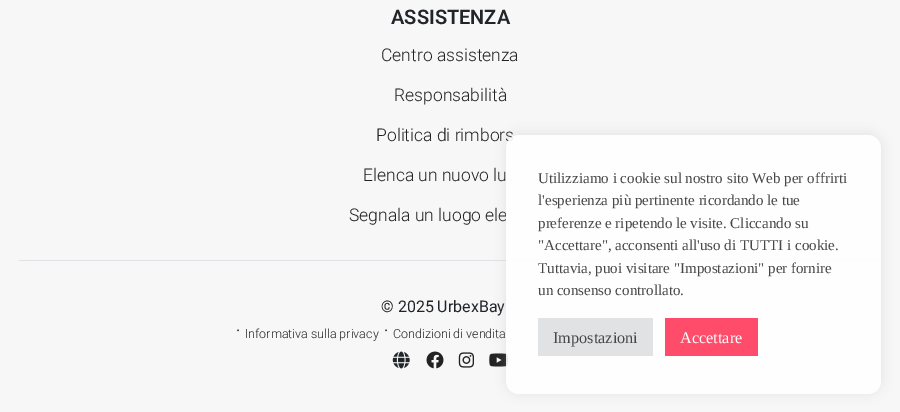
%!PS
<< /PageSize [900 412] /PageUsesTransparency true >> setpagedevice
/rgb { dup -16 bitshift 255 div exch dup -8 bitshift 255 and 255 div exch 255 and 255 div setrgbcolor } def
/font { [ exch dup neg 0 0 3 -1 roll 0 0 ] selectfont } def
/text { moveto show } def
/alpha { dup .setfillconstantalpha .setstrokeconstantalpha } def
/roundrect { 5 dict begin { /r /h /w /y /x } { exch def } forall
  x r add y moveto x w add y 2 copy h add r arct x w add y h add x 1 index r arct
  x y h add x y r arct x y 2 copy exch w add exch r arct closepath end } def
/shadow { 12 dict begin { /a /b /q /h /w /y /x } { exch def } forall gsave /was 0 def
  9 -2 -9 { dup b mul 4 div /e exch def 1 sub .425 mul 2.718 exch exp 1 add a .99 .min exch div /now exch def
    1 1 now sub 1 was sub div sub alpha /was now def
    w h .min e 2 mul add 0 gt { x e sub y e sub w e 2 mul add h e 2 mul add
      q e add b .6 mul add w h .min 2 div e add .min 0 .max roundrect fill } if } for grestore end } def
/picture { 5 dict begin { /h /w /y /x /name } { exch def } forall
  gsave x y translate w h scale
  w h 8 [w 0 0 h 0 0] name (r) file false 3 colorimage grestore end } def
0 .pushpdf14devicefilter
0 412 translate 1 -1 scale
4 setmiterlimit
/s1 { /Roboto-SemiBold 20 font 16#212529 rgb } def
/s2 { /Roboto-Light 17.5 font 16#222222 rgb } def
/s3 { /Roboto-Regular 16 font 16#212529 rgb } def
/s4 { /Roboto-Light 12.5 font 16#222222 rgb } def
/s5 { /LiberationSerif-Regular 15 font 16#474747 rgb } def
/s6 { /LiberationSerif-Regular 16.25 font 16#474747 rgb } def
/s7 { /LiberationSerif-Regular 16.25 font 16#FEFEFE rgb } def
16#F7F7F7 rgb
0 0 900 412 rectfill
s1
(ASSISTENZA) 391 24 text
s2
(Centro assistenza) 381 61 text
(Responsabilità) 394 101 text
(Politica di rimbors) 376 141 text
(Elenca un nuovo lu) 363 181 text
(Segnala un luogo ele) 349 221 text
16#DEE2E6 rgb
19 260 862 1 rectfill
s3
(© 2025 UrbexBay) 381 312 text
(·) 236 336 text
s4
(Informativa sulla privacy) 245 338 text
s3
(·) 384 336 text
s4
(Condizioni di vendita) 393 338 text
(pic1.raw) 392 351 18 18 picture
(pic2.raw) 426 351 18 18 picture
(pic3.raw) 458 352 16 16 picture
(pic4.raw) 489 353 19 14 picture
gsave
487 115 moveto 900 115 lineto 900 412 lineto 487 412 lineto closepath 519 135 moveto 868 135 lineto 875 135 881 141 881 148 curveto 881 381 lineto 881 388 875 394 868 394 curveto 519 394 lineto 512 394 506 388 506 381 curveto 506 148 lineto 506 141 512 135 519 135 curveto closepath eoclip newpath
16#ACABAB rgb
506 134 375 259 13 6 0.27 shadow
grestore
0.9 alpha
16#FFFFFF rgb
506 135 375 259 13 roundrect fill
1 alpha
s5
(Utilizziamo i cookie sul nostro sito Web per offrirti) 538 183 text
(l'esperienza più pertinente ricordando le tue) 538 205 text
(preferenze e ripetendo le visite. Cliccando su) 538 228 text
("Accettare", acconsenti all'uso di TUTTI i cookie.) 538 250 text
(Tuttavia, puoi visitare "Impostazioni" per fornire) 538 273 text
(un consenso controllato.) 538 295 text
0.9 alpha
16#DEDFE0 rgb
538 318 115 38 rectfill
1 alpha
s6
(Impostazioni) 553 343 text
0.9 alpha
16#FF395B rgb
665 318 93 38 rectfill
1 alpha
s7
(Accettare) 680 343 text
.poppdf14devicefilter showpage
